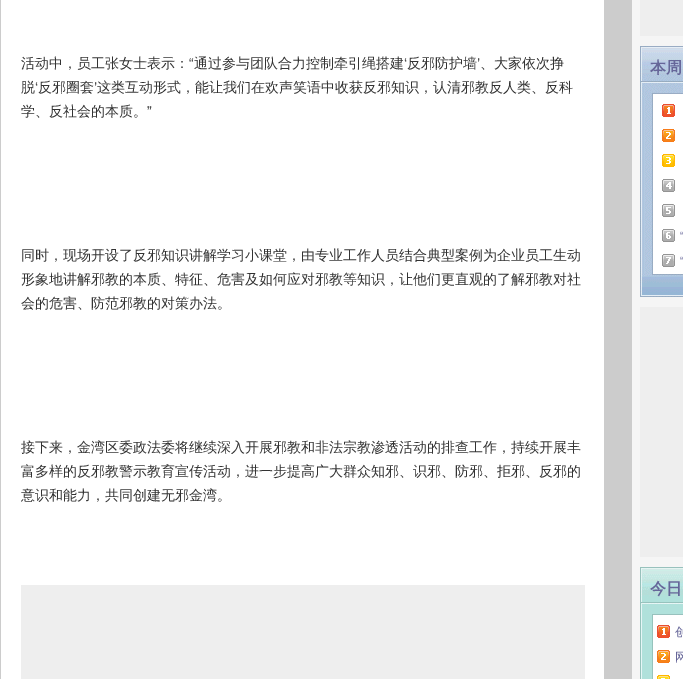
%!PS
<< /PageSize [683 679] >> setpagedevice
/rgb { dup -16 bitshift 255 div exch dup -8 bitshift 255 and 255 div exch 255 and 255 div setrgbcolor } def
/font { [ exch dup neg 0 0 3 -1 roll 0 0 ] selectfont } def
/text { moveto show } def
/picture { 5 dict begin { /h /w /y /x /name } { exch def } forall
  gsave x y translate w h scale
  w h 8 [w 0 0 h 0 0] name (r) file false 3 colorimage grestore end } def
0 679 translate 1 -1 scale
4 setmiterlimit
/s1 { /WenQuanYiZenHei-Medium 14 font 16#333333 rgb } def
/s2 { /LiberationSans-Regular 14 font 16#333333 rgb } def
/s3 { /WenQuanYiZenHei-Bold 16 font 16#666699 rgb } def
/s4 { /LiberationSans-Regular 12 font 16#666699 rgb } def
/s5 { /WenQuanYiZenHei-Medium 12 font 16#666699 rgb } def
16#CCCCCC rgb
0 0 683 679 rectfill
16#FFFFFF rgb
1 0 603 679 rectfill
s1
(活动中，员工张女士表示：) 21 68 text
s2
(“) 189 68 text
s1
(通过参与团队合力控制牵引绳搭建) 194 68 text
s2
(‘) 404 68 text
s1
(反邪防护墙) 407 68 text
s2
(’) 477 68 text
s1
(、大家依次挣) 480 68 text
(脱) 21 92 text
s2
(‘) 35 92 text
s1
(反邪圈套) 38 92 text
s2
(’) 94 92 text
s1
(这类互动形式，能让我们在欢声笑语中收获反邪知识，认清邪教反人类、反科) 97 92 text
(学、反社会的本质。) 21 116 text
s2
(”) 147 116 text
s1
(同时，现场开设了反邪知识讲解学习小课堂，由专业工作人员结合典型案例为企业员工生动) 21 260 text
(形象地讲解邪教的本质、特征、危害及如何应对邪教等知识，让他们更直观的了解邪教对社) 21 284 text
(会的危害、防范邪教的对策办法。) 21 308 text
(接下来，金湾区委政法委将继续深入开展邪教和非法宗教渗透活动的排查工作，持续开展丰) 21 452 text
(富多样的反邪教警示教育宣传活动，进一步提高广大群众知邪、识邪、防邪、拒邪、反邪的) 21 476 text
(意识和能力，共同创建无邪金湾。) 21 500 text
16#EEEEEE rgb
21 585 564 94 rectfill
16#F5F5F5 rgb
632 0 51 679 rectfill
16#EEEEEE rgb
640 0 43 36 rectfill
(pic1.raw) 640 46 43 48 picture
s3
(本周) 650 73 text
(pic2.raw) 640 94 43 180 picture
(pic3.raw) 662 104 13 163 picture
s4
(“) 680 240 text
(“) 680 265 text
(pic4.raw) 640 274 43 23 picture
16#EEEEEE rgb
640 307 43 250 rectfill
(pic5.raw) 640 567 43 48 picture
s3
(今日) 650 594 text
(pic6.raw) 640 615 43 64 picture
(pic7.raw) 657 625 13 54 picture
s5
(创) 675 636 text
(网) 675 661 text
showpage
